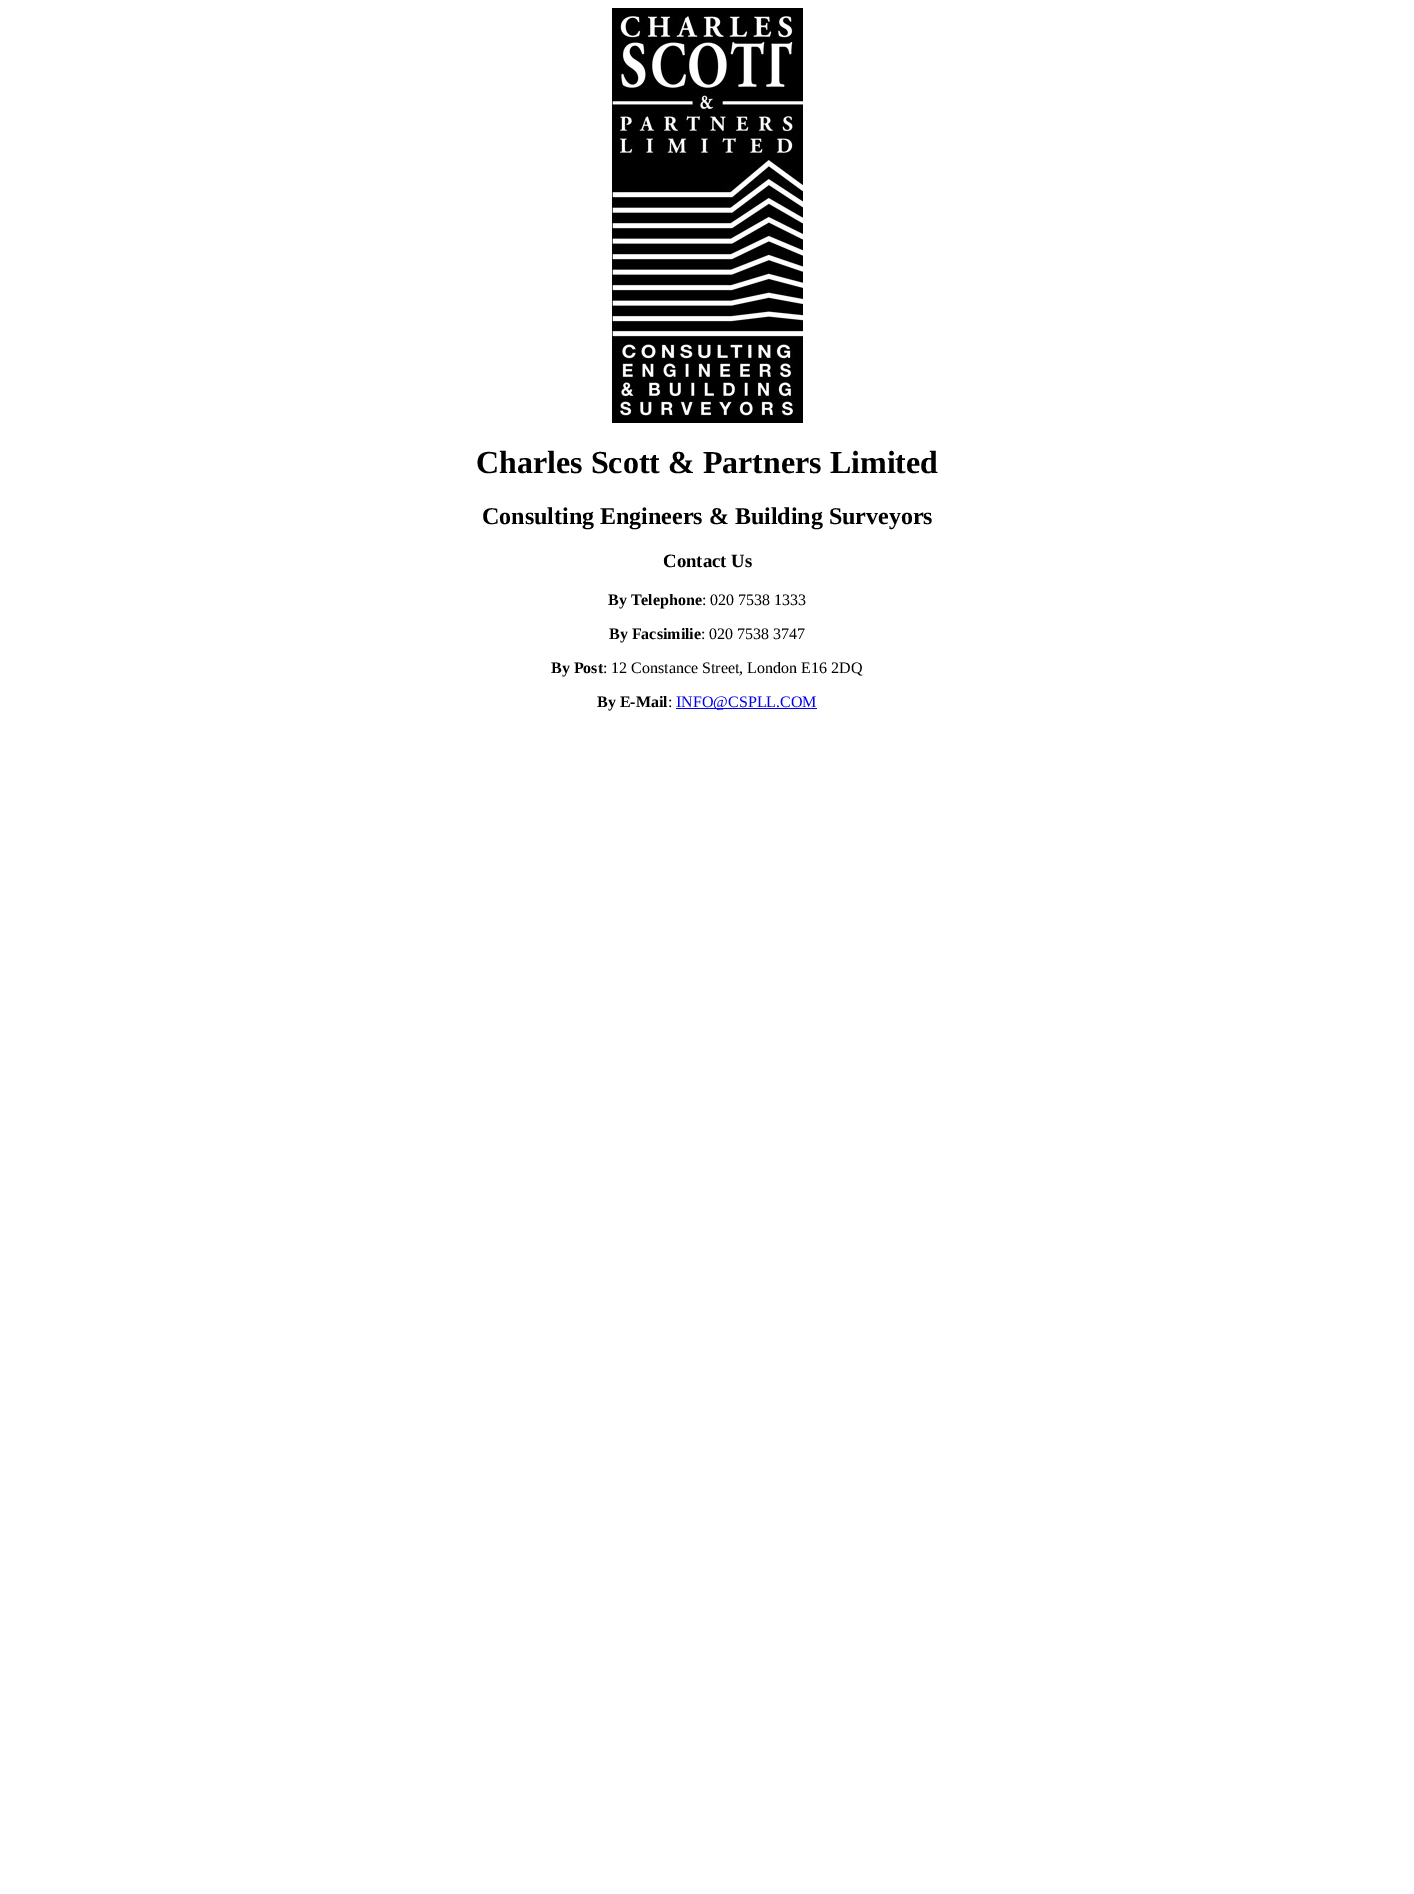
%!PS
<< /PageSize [1414 1894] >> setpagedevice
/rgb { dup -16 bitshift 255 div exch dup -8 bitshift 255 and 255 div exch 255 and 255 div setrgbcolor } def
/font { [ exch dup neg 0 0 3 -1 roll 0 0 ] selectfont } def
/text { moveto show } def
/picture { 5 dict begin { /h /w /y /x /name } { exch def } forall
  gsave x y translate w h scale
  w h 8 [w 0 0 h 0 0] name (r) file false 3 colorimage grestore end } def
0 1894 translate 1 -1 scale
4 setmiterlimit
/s1 { /LiberationSerif-Bold 32 font 16#000000 rgb } def
/s2 { /LiberationSerif-Bold 24 font 16#000000 rgb } def
/s3 { /LiberationSerif-Bold 18.75 font 16#000000 rgb } def
/s4 { /LiberationSerif-Bold 16 font 16#000000 rgb } def
/s5 { /LiberationSerif-Regular 16 font 16#000000 rgb } def
/s6 { /LiberationSerif-Regular 16 font 16#0000EE rgb } def
16#FFFFFF rgb
0 0 1414 1894 rectfill
(pic1.raw) 612 8 191 415 picture
s1
(Charles Scott & Partners Limited) 476 473 text
s2
(Consulting Engineers & Building Surveyors) 482 524 text
s3
(Contact Us) 663 567 text
s4
(By Telephone) 608 605 text
s5
(: 020 7538 1333) 702 605 text
s4
(By Facsimilie) 609 639 text
s5
(: 020 7538 3747) 701 639 text
s4
(By Post) 551 673 text
s5
(: 12 Constance Street, London E16 2DQ) 603 673 text
s4
(By E-Mail) 597 707 text
s5
(:) 668 707 text
16#0000EE rgb
676 708 141 1 rectfill
(INFO@CSPLL.COM) 676 707 text
showpage
